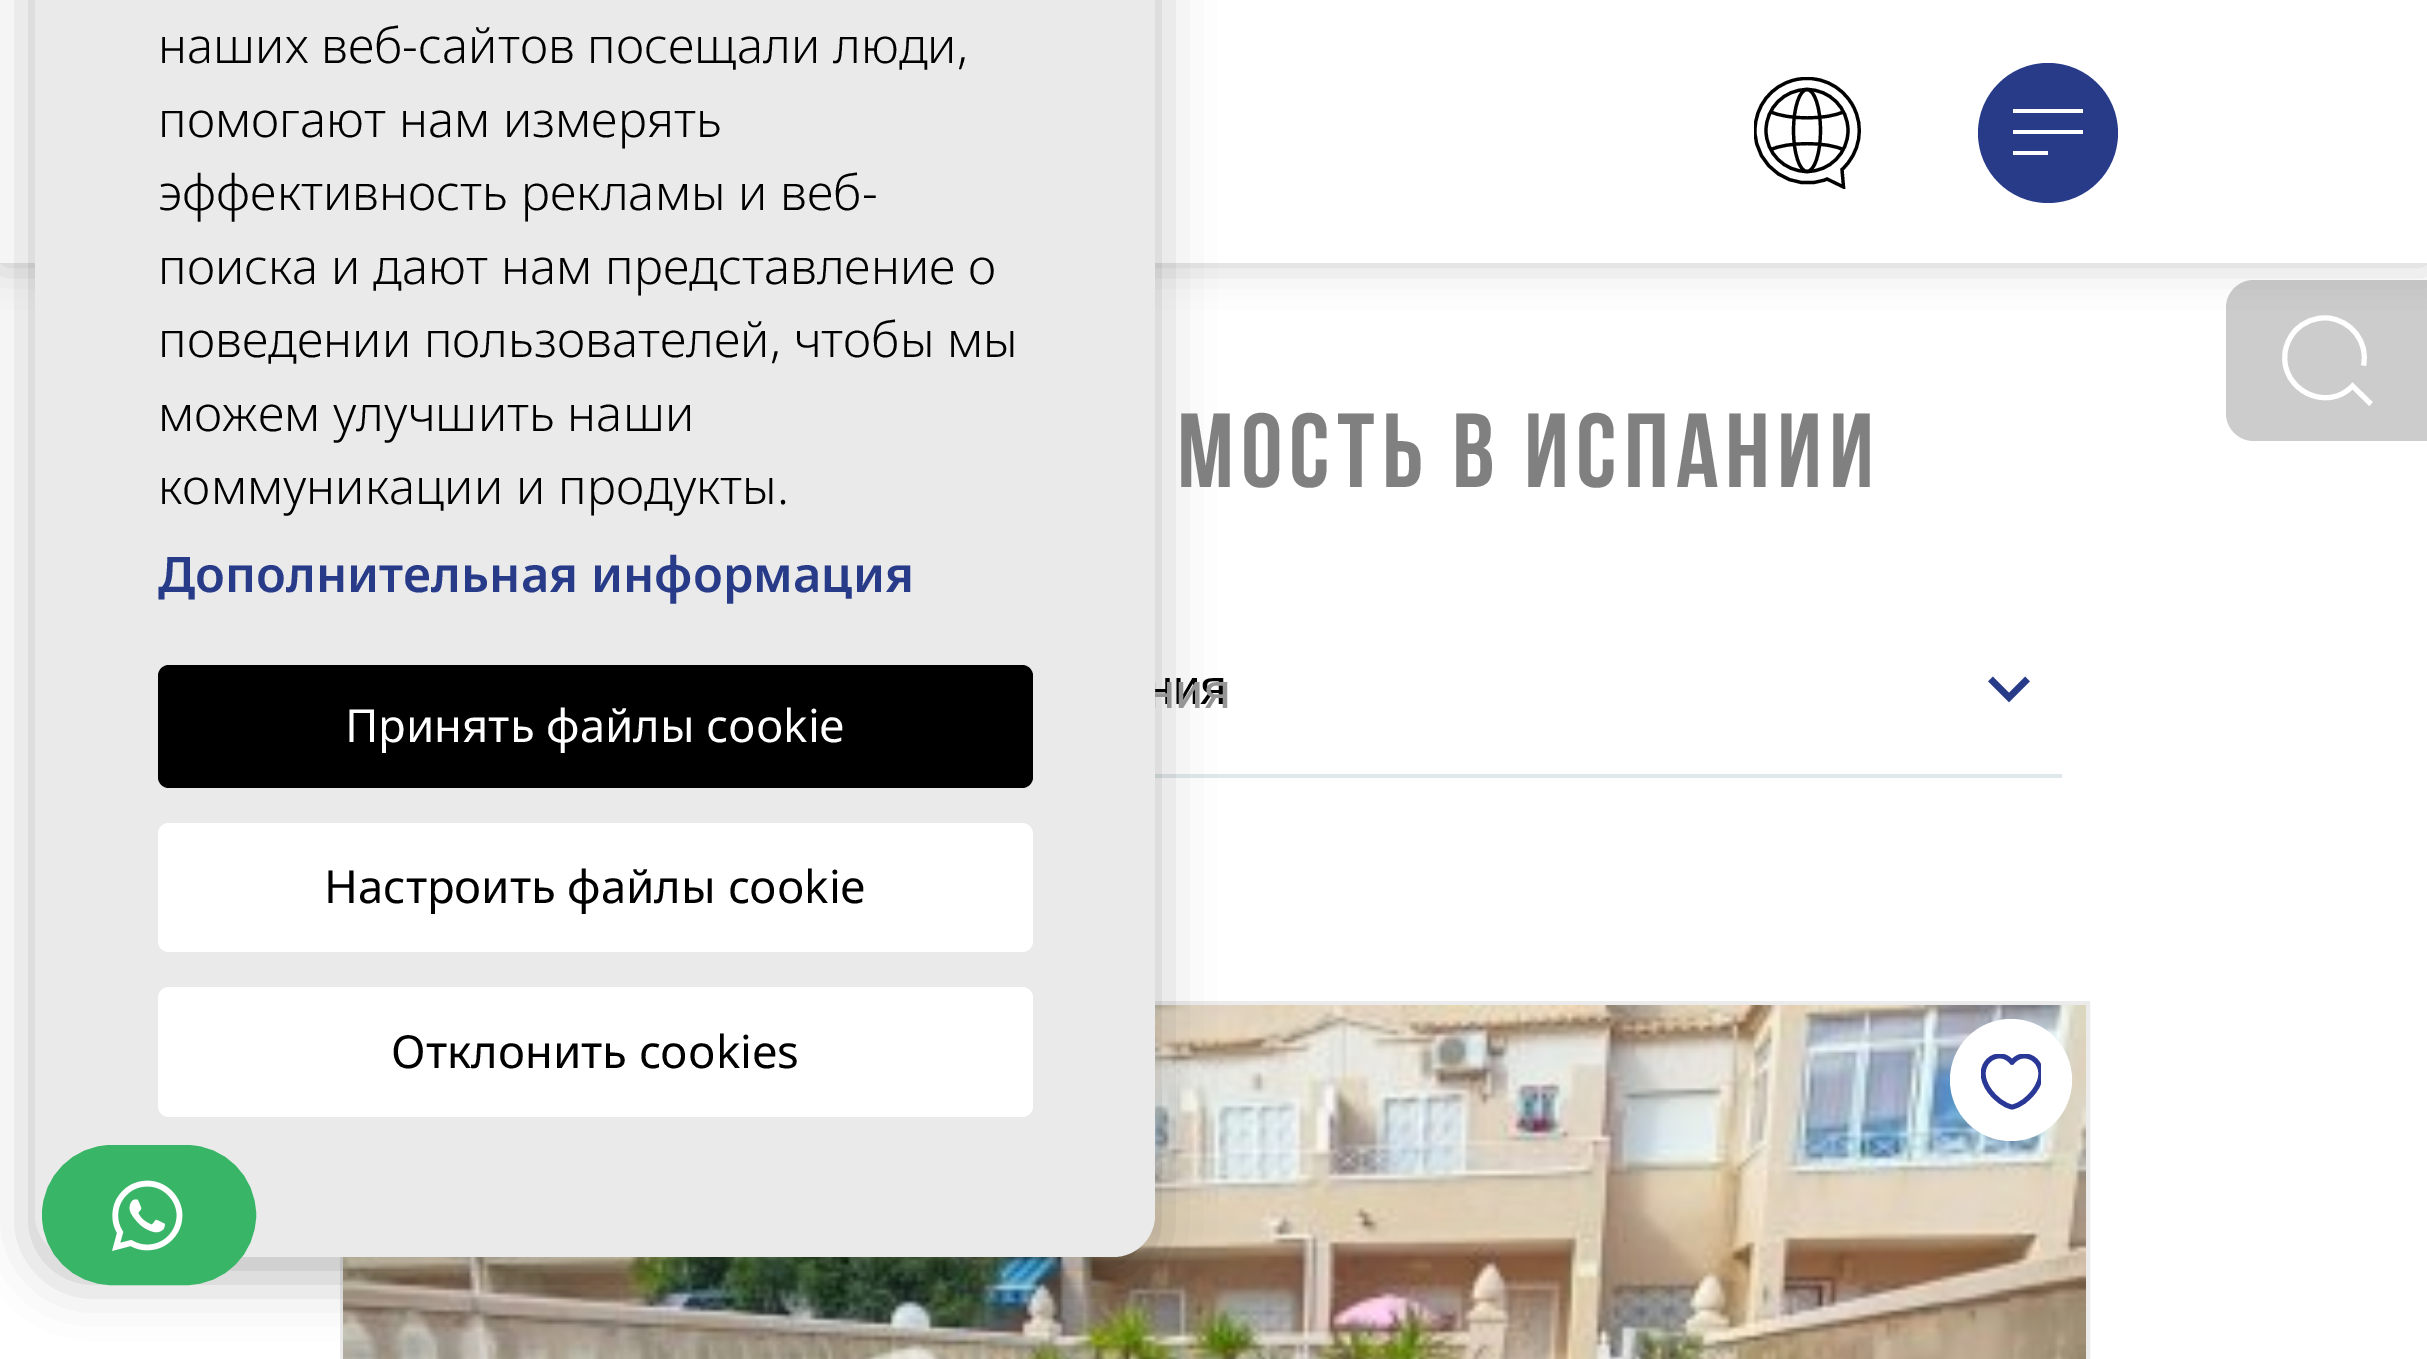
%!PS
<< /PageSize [2427 1359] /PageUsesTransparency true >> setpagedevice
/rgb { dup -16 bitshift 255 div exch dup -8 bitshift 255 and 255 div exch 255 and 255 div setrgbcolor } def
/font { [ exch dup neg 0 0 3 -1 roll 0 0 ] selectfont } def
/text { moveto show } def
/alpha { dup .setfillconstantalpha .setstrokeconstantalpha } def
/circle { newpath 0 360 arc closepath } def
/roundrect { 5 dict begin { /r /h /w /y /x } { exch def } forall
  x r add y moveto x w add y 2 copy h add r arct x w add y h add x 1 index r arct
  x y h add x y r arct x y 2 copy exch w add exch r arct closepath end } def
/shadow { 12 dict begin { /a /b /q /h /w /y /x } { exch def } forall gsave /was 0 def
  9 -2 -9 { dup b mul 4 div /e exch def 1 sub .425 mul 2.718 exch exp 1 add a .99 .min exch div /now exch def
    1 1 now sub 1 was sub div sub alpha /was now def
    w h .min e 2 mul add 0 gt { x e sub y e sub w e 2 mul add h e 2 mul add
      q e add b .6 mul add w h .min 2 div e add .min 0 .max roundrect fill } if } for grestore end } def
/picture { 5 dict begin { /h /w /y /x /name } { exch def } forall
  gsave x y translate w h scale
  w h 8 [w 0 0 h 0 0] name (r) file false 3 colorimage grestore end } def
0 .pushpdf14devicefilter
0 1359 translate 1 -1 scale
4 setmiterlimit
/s1 { /LiberationSans-Regular 49 font 16#000000 rgb } def
/s2 { /Roboto-Regular 49 font 16#959595 rgb } def
/s3 { /NotoSans-Light 49 font 16#000000 rgb } def
/s4 { /NotoSans-SemiBold 49 font 16#273B89 rgb } def
/s5 { /NotoSans-Regular 45.5 font 16#FFFFFF rgb } def
/s6 { /NotoSans-Regular 45.5 font 16#000000 rgb } def
16#FFFFFF rgb
0 0 2427 1359 rectfill
16#CCCCCC rgb
2254 280 moveto 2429 280 lineto 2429 441 lineto 2254 441 lineto 2238.5 441 2226 428.5 2226 413 curveto 2226 308 lineto 2226 292.5 2238.5 280 2254 280 curveto closepath fill
16#FFFFFF rgb
5 setlinewidth
2371 404 moveto 2352.5 386 lineto 2327 413 2280.5 390 2285 353 curveto 2286 345 2289.5 337 2295 331 curveto 2303 322 2315.5 317 2327.5 318 curveto 2351.5 320 2368.5 342.5 2363.5 365.5 curveto stroke
16#000000 rgb
0 0 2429 263 0 21 0.2 shadow
16#FFFFFF rgb
0 0 2427 263 rectfill
16#000000 rgb
3.2 setlinewidth
1807 130.5 41 circle stroke
1807 89.5 moveto 1814.5 89.5 1820.5 108 1820.5 130.5 curveto 1820.5 153 1814.5 171.5 1807 171.5 curveto 1799.5 171.5 1793.5 153 1793.5 130.5 curveto 1793.5 108 1799.5 89.5 1807 89.5 curveto closepath stroke
1844 111.5 moveto 1827.5 120 1787 120 1770 111.5 curveto stroke
1770 150 moveto 1787 141.5 1827.5 141.5 1844 150 curveto stroke
gsave
1754 77 108 112 rectclip
1753.5 77 moveto 1860.5 77 lineto 1860.5 189 lineto 1753.5 189 lineto closepath clip newpath
1755 130.5 moveto 1755 167.5 1793 193 1827 179 curveto 1843.5 187 lineto 1842 169.5 lineto 1860 153 1864.5 127 1853 106 curveto 1842 85 1817.5 74 1794.5 80 curveto 1771 85.5 1755 106.5 1755 130.5 curveto closepath stroke
grestore
16#273B89 rgb
2048 133 70 circle fill
16#FFFFFF rgb
2013 109 70 4 rectfill
2013 130 70 4 rectfill
2013 151 35 4 rectfill
16#DFE8EA rgb
1155 774 907 4 rectfill
16#EBEBEB rgb
4 setlinewidth
342 1003 1746 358 rectstroke
(pic2.raw) 343 1005 1743 354 picture
16#000000 rgb
35 -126 1120 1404 42 28 0.25 shadow
s1
(ния) 1146 704 text
s2
(ния) 1147 708 text
16#EAEAEA rgb
35 -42 1120 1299 42 roundrect fill
s3
(наших веб-сайтов посещали люди,) 158 63 text
(помогают нам измерять) 158 137 text
(эффективность рекламы и веб-) 158 210 text
(поиска и дают нам представление о) 158 284 text
(поведении пользователей, чтобы мы) 158 357 text
(можем улучшить наши) 158 431 text
(коммуникации и продукты.) 158 504 text
s4
(Дополнительная информация) 158 592 text
16#000000 rgb
158 665 875 123 11 roundrect fill
s5
(Принять файлы cookie) 345 742 text
158 823 875 129 11 roundrect fill
s6
(Настроить файлы cookie) 324 903 text
16#FFFFFF rgb
158 987 875 130 11 roundrect fill
s6
(Отклонить cookies) 391 1068 text
/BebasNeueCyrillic-Regular 105 font
16#808080 rgb
1177 487 moveto 7 0 (МОСТЬ В ИСПАНИИ) ashow
16#273B89 rgb
6.7 setlinewidth
2027.5 679 moveto 2009 697.5 lineto 1990.5 679 lineto stroke
16#38B567 rgb
44 1147 210 136 68 roundrect gsave fill grestore
4 setlinewidth
stroke
(pic1.raw) 112 1180 71 71 picture
16#FFFFFF rgb
2011 1080 61 circle fill
gsave
1981 1054 60 56 rectclip
16#293896 rgb
4.8 setlinewidth
1 setlinejoin
2012 1107 moveto 2004 1105.5 1995.5 1098.5 1990.5 1092 curveto 1969.5 1065 1999 1045 2012 1062.5 curveto 2025 1045 2054.5 1065 2033.5 1092 curveto 2028.5 1098.5 2020.5 1105.5 2012 1107 curveto closepath stroke
grestore
.poppdf14devicefilter showpage
